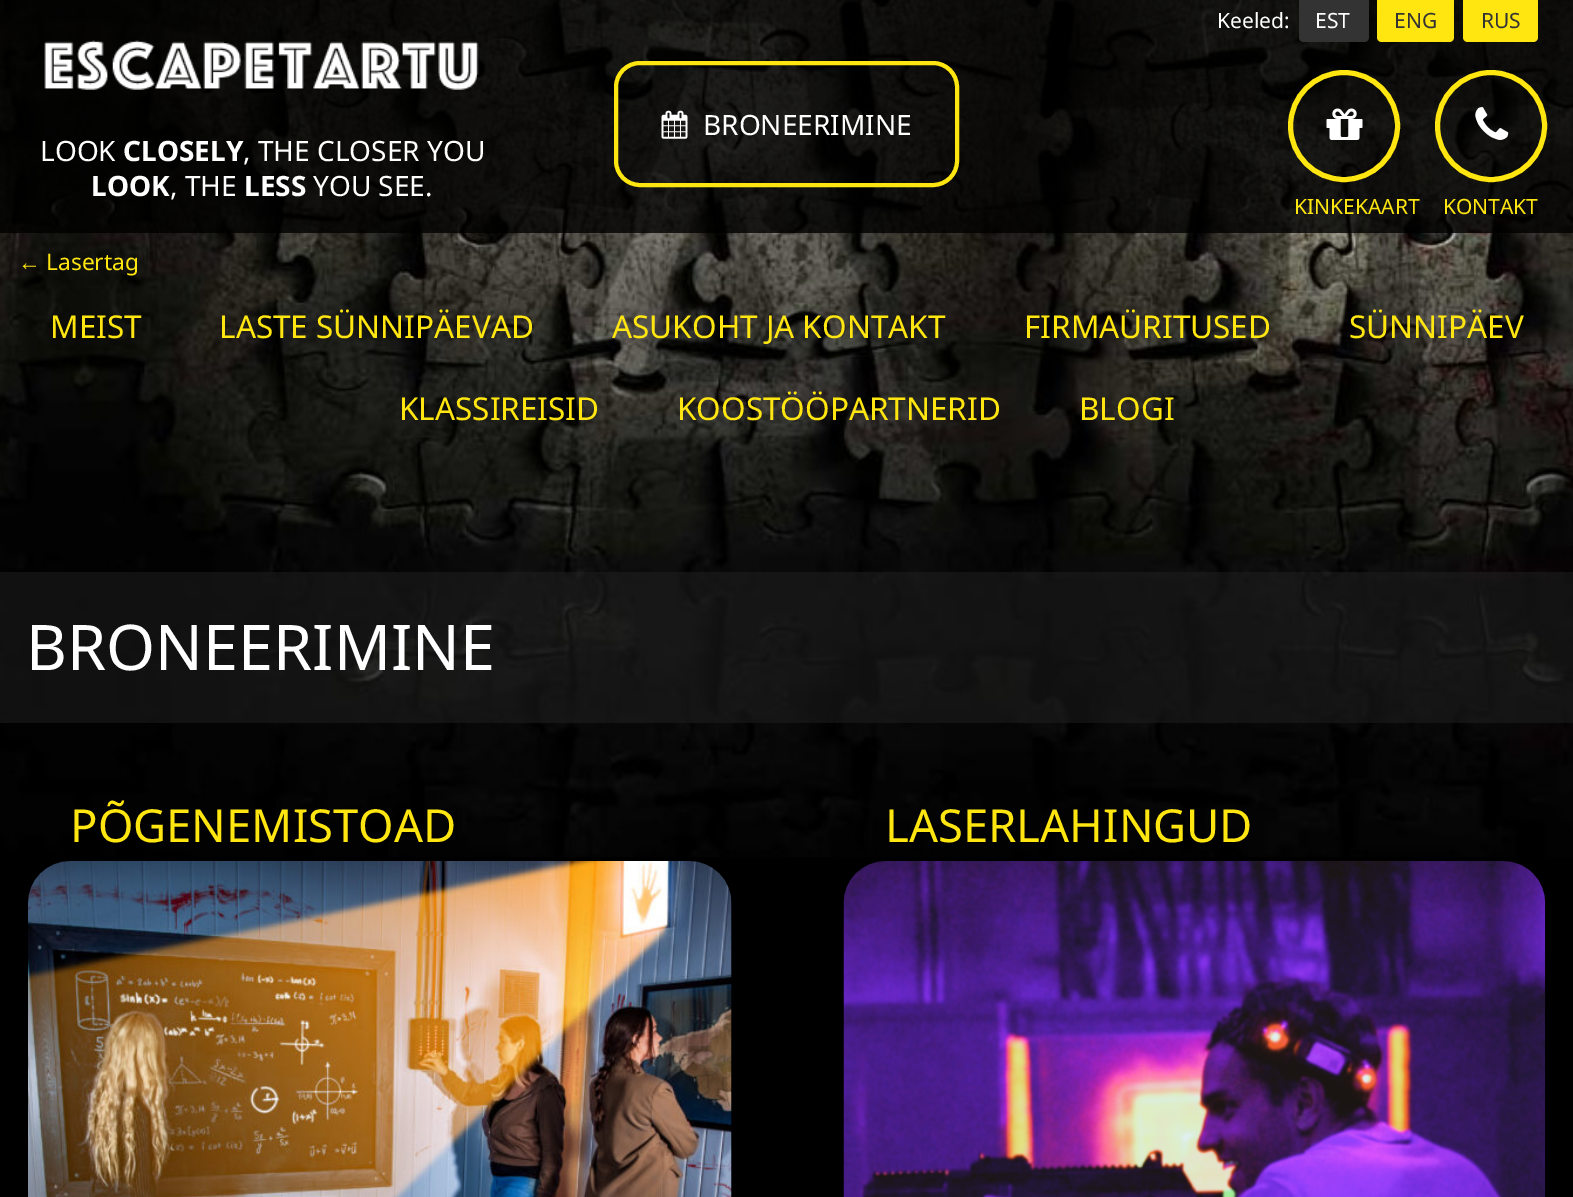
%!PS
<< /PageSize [1573 1197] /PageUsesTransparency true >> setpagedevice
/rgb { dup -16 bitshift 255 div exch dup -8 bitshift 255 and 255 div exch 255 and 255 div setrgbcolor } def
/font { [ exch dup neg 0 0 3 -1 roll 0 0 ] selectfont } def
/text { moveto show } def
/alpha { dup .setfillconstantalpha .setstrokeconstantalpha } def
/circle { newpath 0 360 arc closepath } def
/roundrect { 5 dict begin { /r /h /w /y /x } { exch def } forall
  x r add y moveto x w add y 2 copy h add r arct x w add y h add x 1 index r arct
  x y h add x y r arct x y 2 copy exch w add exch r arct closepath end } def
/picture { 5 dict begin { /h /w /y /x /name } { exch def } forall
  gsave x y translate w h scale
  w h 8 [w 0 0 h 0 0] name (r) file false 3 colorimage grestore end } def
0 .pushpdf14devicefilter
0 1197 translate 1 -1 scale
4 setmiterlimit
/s1 { /NotoSans-Regular 21 font 16#FFFFFF rgb } def
/s2 { /NotoSans-Regular 21 font 16#333333 rgb } def
/s3 { /NotoSans-Regular 28 font 16#FFFFFF rgb } def
/s4 { /NotoSans-Bold 28 font 16#FFFFFF rgb } def
/s5 { /NotoSans-Regular 21 font 16#FFE610 rgb } def
/s6 { /LiberationSans-Regular 22.75 font 16#FFE610 rgb } def
/s7 { /NotoSans-Regular 22.75 font 16#FFE610 rgb } def
/s8 { /NotoSans-Regular 31.5 font 16#FFE610 rgb } def
/s9 { /NotoSans-Regular 63 font 16#FFFFFF rgb } def
/s10 { /NotoSans-Regular 45.5 font 16#FFE610 rgb } def
16#000000 rgb
0 0 1573 1197 rectfill
(pic1.raw) 0 0 1573 857 picture
0.8 alpha
0 0 1573 233 rectfill
1 alpha
s1
(Keeled:) 1217 28 text
16#333333 rgb
1299 0 moveto 1369 0 lineto 1369 37 lineto 1369 40 1367 42 1364 42 curveto 1304 42 lineto 1301 42 1299 40 1299 37 curveto closepath fill
s1
(EST) 1315 28 text
16#FFE610 rgb
1377 0 moveto 1454 0 lineto 1454 37 lineto 1454 40 1452 42 1449 42 curveto 1382 42 lineto 1379 42 1377 40 1377 37 curveto closepath fill
s2
(ENG) 1394 28 text
16#FFE610 rgb
1463 0 moveto 1538 0 lineto 1538 37 lineto 1538 40 1536 42 1533 42 curveto 1468 42 lineto 1465 42 1463 40 1463 37 curveto closepath fill
s2
(RUS) 1481 28 text
16#FFE610 rgb
4 setlinewidth
616 63 341 122 24 roundrect stroke
(pic2.raw) 661 110 27 29 picture
s3
(BRONEERIMINE) 703 135 text
(pic3.raw) 44 40 435 50 picture
(LOOK) 40 161 text
s4
(CLOSELY) 123 161 text
s3
(, THE CLOSER YOU) 243 161 text
s4
(LOOK) 91 196 text
s3
(, THE) 170 196 text
s4
(LESS) 244 196 text
s3
(YOU SEE.) 313 196 text
16#FFE610 rgb
5 setlinewidth
1344 126 53.5 circle stroke
(pic4.raw) 1326 108 37 32 picture
s5
(KINKEKAART) 1294 214 text
1491 126 53.5 circle stroke
(pic5.raw) 1475 107 34 33 picture
(KONTAKT) 1443 214 text
s6
(←) 18 270 text
s7
(Lasertag) 46 270 text
s8
(MEIST) 50 338 text
(LASTE SÜNNIPÄEVAD) 219 338 text
(ASUKOHT JA KONTAKT) 612 338 text
(FIRMAÜRITUSED) 1024 338 text
(SÜNNIPÄEV) 1349 338 text
(KLASSIREISID) 399 420 text
(KOOSTÖÖPARTNERID) 677 420 text
(BLOGI) 1079 420 text
0.47 alpha
16#222222 rgb
0 572 1573 151 rectfill
1 alpha
s9
(BRONEERIMINE) 26 670 text
s10
(PÕGENEMISTOAD) 70 842 text
(pic6.raw) 28 861 704 336 picture
(LASERLAHINGUD) 885 842 text
(pic7.raw) 843 861 703 336 picture
.poppdf14devicefilter showpage
